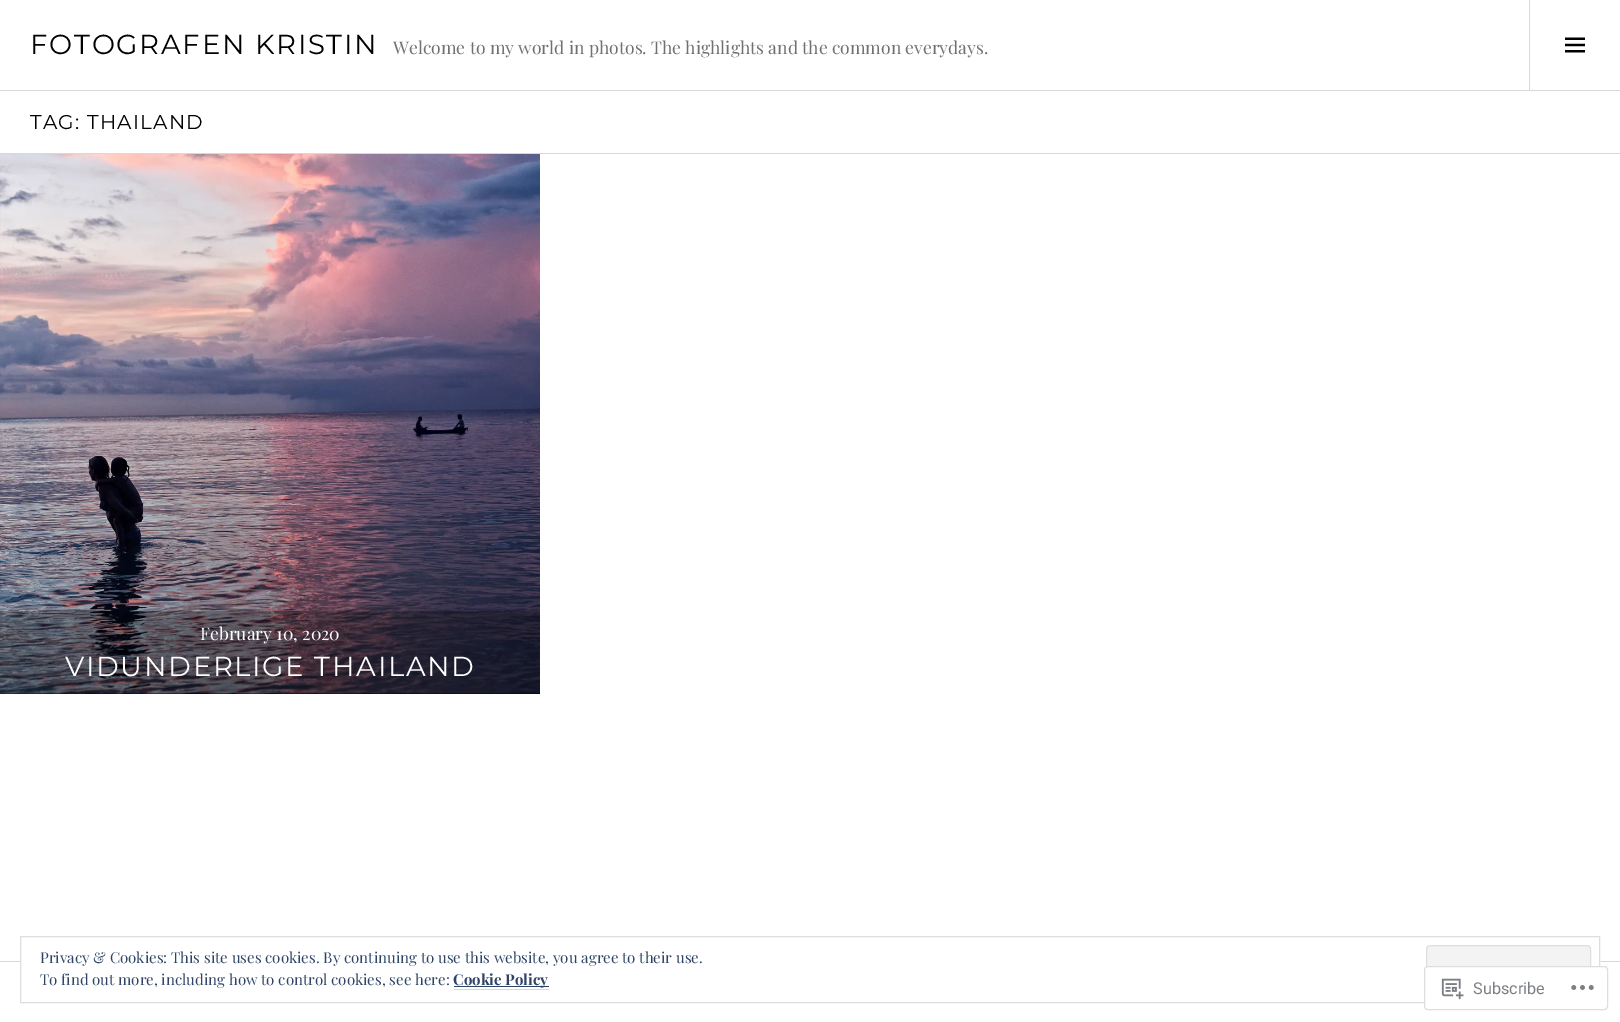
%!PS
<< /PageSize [1620 1022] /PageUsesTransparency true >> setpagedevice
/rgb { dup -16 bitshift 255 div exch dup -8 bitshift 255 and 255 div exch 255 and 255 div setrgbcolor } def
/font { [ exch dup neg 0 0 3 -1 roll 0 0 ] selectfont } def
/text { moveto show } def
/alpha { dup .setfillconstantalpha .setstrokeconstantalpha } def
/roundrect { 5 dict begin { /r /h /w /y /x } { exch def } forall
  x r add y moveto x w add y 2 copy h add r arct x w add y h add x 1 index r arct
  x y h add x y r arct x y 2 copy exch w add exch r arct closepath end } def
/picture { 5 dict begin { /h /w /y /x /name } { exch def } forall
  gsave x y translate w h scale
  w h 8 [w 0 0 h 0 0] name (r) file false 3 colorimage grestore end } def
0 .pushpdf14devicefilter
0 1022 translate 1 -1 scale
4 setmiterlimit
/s1 { /PlayfairDisplay-Regular 17.5 font 16#707070 rgb } def
/s2 { /PlayfairDisplay-Regular 17.5 font 16#FFFFFF rgb } def
/s3 { /PlayfairDisplay-Regular 15 font 16#2E4467 rgb } def
/s4 { /PlayfairDisplay-Bold 15 font 16#2E4467 rgb } def
/s5 { /Roboto-Regular 16.25 font 16#7B7F84 rgb } def
16#FFFFFF rgb
0 0 1620 1022 rectfill
16#D8D8D8 rgb
0 90 1620 1 rectfill
/Montserrat-Regular 27.5 font
16#000000 rgb
30 54 moveto 1.75 0 (FOTOGRAFEN KRISTIN) ashow
s1
(Welcome to my world in photos. The highlights and the common everydays.) 393 54 text
16#D8D8D8 rgb
1529 0 1 90 rectfill
(pic1.raw) 1565 37 20 16 picture
0 153 1620 1 rectfill
/Montserrat-Regular 20 font
16#000000 rgb
30 129 moveto 1.25 0 (TAG: THAILAND) ashow
0 154 540 540 rectfill
(pic2.raw) 0 154 540 540 picture
0.25 alpha
0 611 540 83 rectfill
1 alpha
s2
(February 10, 2020) 200 640 text
/Montserrat-Regular 27.5 font
65 676 moveto 1.75 0 (VIDUNDERLIGE THAILAND) ashow
16#D8D8D8 rgb
0 961 1620 1 rectfill
16#FFFFFF rgb
21 961 1578 1 rectfill
16#DEDEDE rgb
20.5 936.5 1579 66 rectstroke
s3
(Privacy & Cookies: This site uses cookies. By continuing to use this website, you agree to their use.) 40 963 text
16#F3F3F3 rgb
1426.5 945.5 164 48 3.5 roundrect gsave fill grestore
16#DEDEDE rgb
stroke
s3
(To find out more, including how to control cookies, see here:) 40 985 text
454 986 95 1 rectfill
s4
(Cookie Policy) 453 985 text
16#D8D8D8 rgb
454 989 95 1 rectfill
0.98 alpha
16#FFFFFF rgb
1424 966 184 44 4 roundrect fill
16#DCDCDE rgb
1424.5 966.5 183 43 3.5 roundrect stroke
1 alpha
(pic3.raw) 1441 978 23 22 picture
s5
(Subscribe) 1473 994 text
(pic4.raw) 1571 985 23 5 picture
.poppdf14devicefilter showpage
